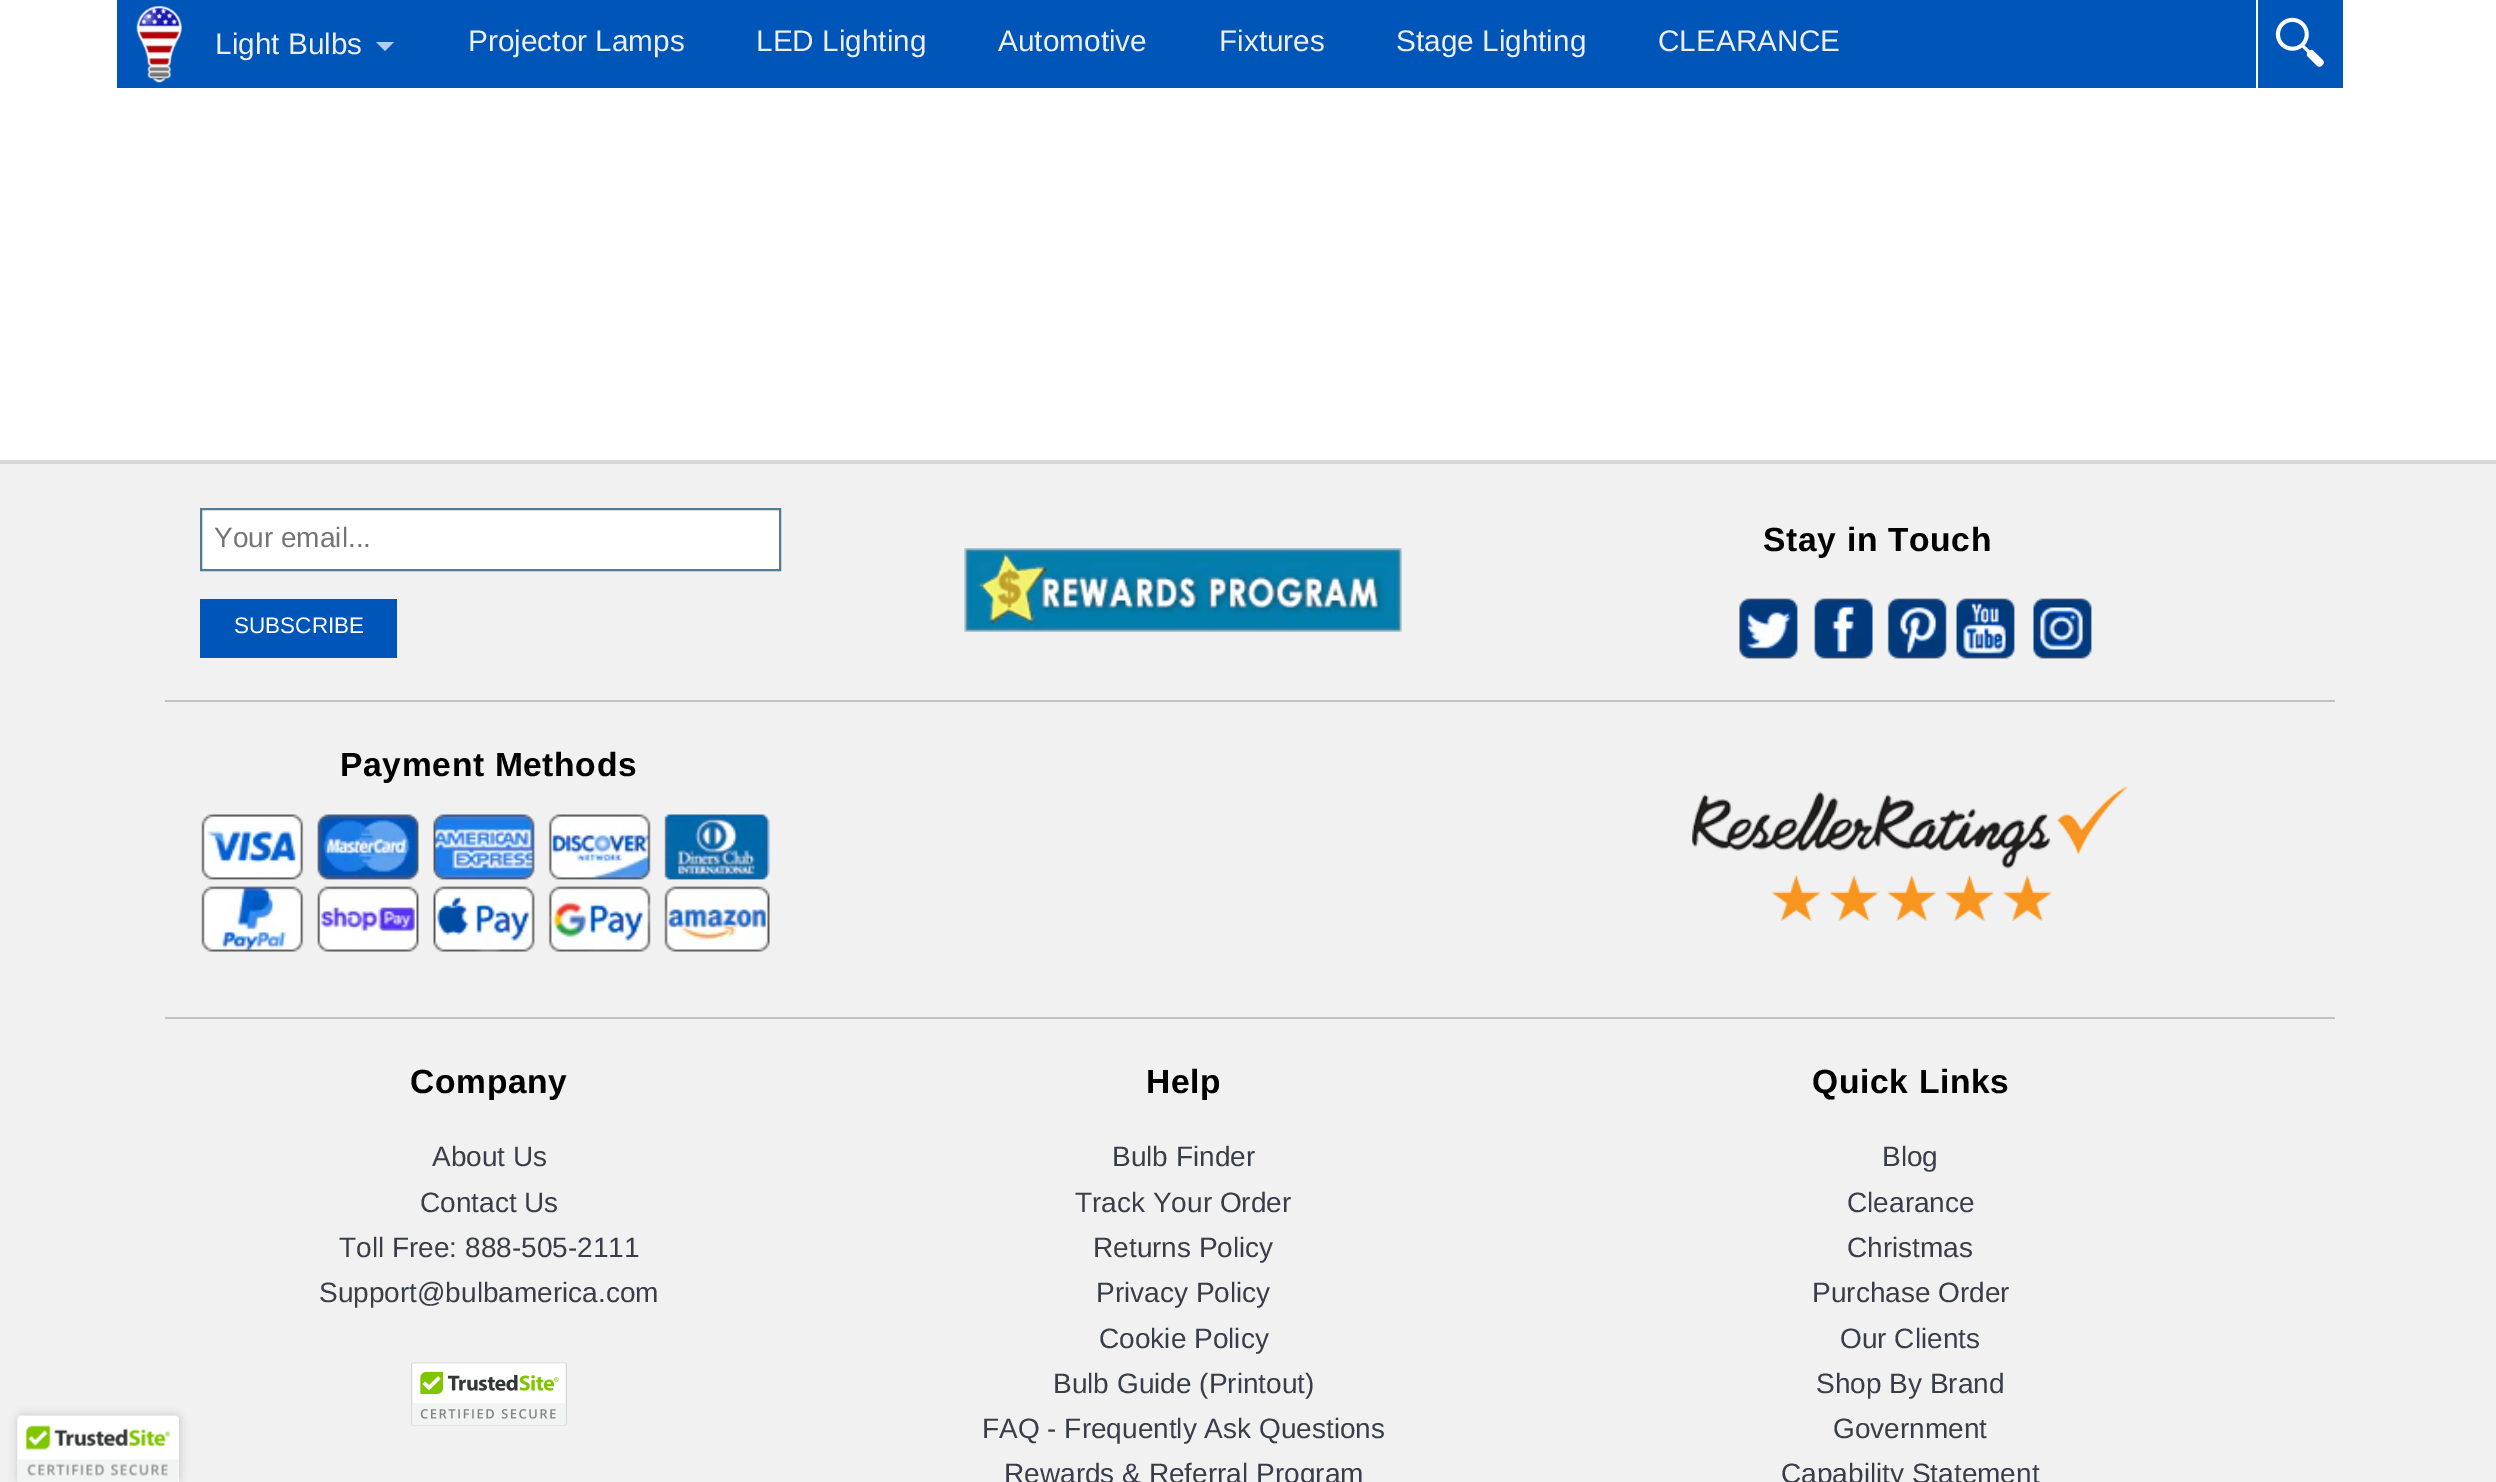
%!PS
<< /PageSize [2496 1482] /PageUsesTransparency true >> setpagedevice
/rgb { dup -16 bitshift 255 div exch dup -8 bitshift 255 and 255 div exch 255 and 255 div setrgbcolor } def
/font { [ exch dup neg 0 0 3 -1 roll 0 0 ] selectfont } def
/text { moveto show } def
/alpha { dup .setfillconstantalpha .setstrokeconstantalpha } def
/roundrect { 5 dict begin { /r /h /w /y /x } { exch def } forall
  x r add y moveto x w add y 2 copy h add r arct x w add y h add x 1 index r arct
  x y h add x y r arct x y 2 copy exch w add exch r arct closepath end } def
/shadow { 12 dict begin { /a /b /q /h /w /y /x } { exch def } forall gsave /was 0 def
  9 -2 -9 { dup b mul 4 div /e exch def 1 sub .425 mul 2.718 exch exp 1 add a .99 .min exch div /now exch def
    1 1 now sub 1 was sub div sub alpha /was now def
    w h .min e 2 mul add 0 gt { x e sub y e sub w e 2 mul add h e 2 mul add
      q e add b .6 mul add w h .min 2 div e add .min 0 .max roundrect fill } if } for grestore end } def
/picture { 5 dict begin { /h /w /y /x /name } { exch def } forall
  gsave x y translate w h scale
  w h 8 [w 0 0 h 0 0] name (r) file false 3 colorimage grestore end } def
0 .pushpdf14devicefilter
0 1482 translate 1 -1 scale
4 setmiterlimit
/s1 { /LiberationSans-Regular 29.75 font 16#EEEEEE rgb } def
/s2 { /LiberationSans-Regular 28 font 16#757575 rgb } def
/s3 { /LiberationSans-Regular 22.5 font 16#FFFFFF rgb } def
/s4 { /LiberationSans-Regular 28 font 16#393D49 rgb } def
16#FFFFFF rgb
0 0 2496 1482 rectfill
16#0056B8 rgb
117 0 2226 88 rectfill
(pic1.raw) 136 5 46 78 picture
s1
(Light Bulbs) 215 54 text
16#B3CCEA rgb
376 42 moveto 394 42 lineto 385 51 lineto closepath fill
s1
(Projector Lamps) 468 51 text
(LED Lighting) 756 51 text
(Automotive) 998 51 text
(Fixtures) 1219 51 text
(Stage Lighting) 1396 51 text
(CLEARANCE) 1658 51 text
16#FFFFFF rgb
2256 0 2 88 rectfill
(pic2.raw) 2275 17 49 50 picture
16#F1F1F1 rgb
0 464 2496 1018 rectfill
16#000000 rgb
18 1416 161 66 4 4.5 0.2 shadow
16#FFFFFF rgb
22 1416 moveto 175 1416 lineto 177 1416 179 1418 179 1420 curveto 179 1482 lineto 18 1482 lineto 18 1420 lineto 18 1418 20 1416 22 1416 curveto closepath fill
(pic3.raw) 17 1415 162 67 picture
16#D6D6D6 rgb
0 460 2496 4 rectfill
16#FFFFFF rgb
201 509 moveto 780 509 lineto 780 570 lineto 201 570 lineto closepath gsave fill grestore
16#537B91 rgb
2 setlinewidth
stroke
s2
(Your email...) 214 547 text
16#0056B8 rgb
200 599 197 59 rectfill
s3
(SUBSCRIBE) 234 633 text
/LiberationSans-Bold 33.5 font
16#000000 rgb
1763 551 moveto 0.7 0 (Stay in Touch) ashow
(pic4.raw) 1739 598 59 61 picture
(pic5.raw) 1814 598 59 61 picture
(pic6.raw) 1887 598 60 61 picture
(pic7.raw) 1956 598 59 61 picture
(pic8.raw) 2033 598 59 61 picture
(pic9.raw) 964 548 438 84 picture
16#C2C2C2 rgb
165 700 2170 2 rectfill
16#000000 rgb
340 776 moveto 0.7 0 (Payment Methods) ashow
(pic10.raw) 201 814 569 138 picture
(pic11.raw) 1692 786 438 135 picture
16#C2C2C2 rgb
165 1017 2170 2 rectfill
16#000000 rgb
410 1093 moveto 0.7 0 (Company) ashow
s4
(About Us) 432 1166 text
(Contact Us) 420 1212 text
(Toll Free: 888-505-2111) 339 1257 text
(Support@bulbamerica.com) 319 1302 text
(pic12.raw) 411 1362 156 64 picture
/LiberationSans-Bold 33.5 font
16#000000 rgb
1146 1093 moveto 0.7 0 (Help) ashow
s4
(Bulb Finder) 1112 1166 text
(Track Your Order) 1075 1212 text
(Returns Policy) 1093 1257 text
(Privacy Policy) 1096 1302 text
(Cookie Policy) 1099 1348 text
(Bulb Guide \(Printout\)) 1053 1393 text
(FAQ - Frequently Ask Questions) 982 1438 text
(Rewards & Referral Program) 1004 1483 text
/LiberationSans-Bold 33.5 font
16#000000 rgb
1812 1093 moveto 0.7 0 (Quick Links) ashow
s4
(Blog) 1882 1166 text
(Clearance) 1847 1212 text
(Christmas) 1847 1257 text
(Purchase Order) 1812 1302 text
(Our Clients) 1840 1348 text
(Shop By Brand) 1816 1393 text
(Government) 1833 1438 text
(Capability Statement) 1781 1483 text
.poppdf14devicefilter showpage
